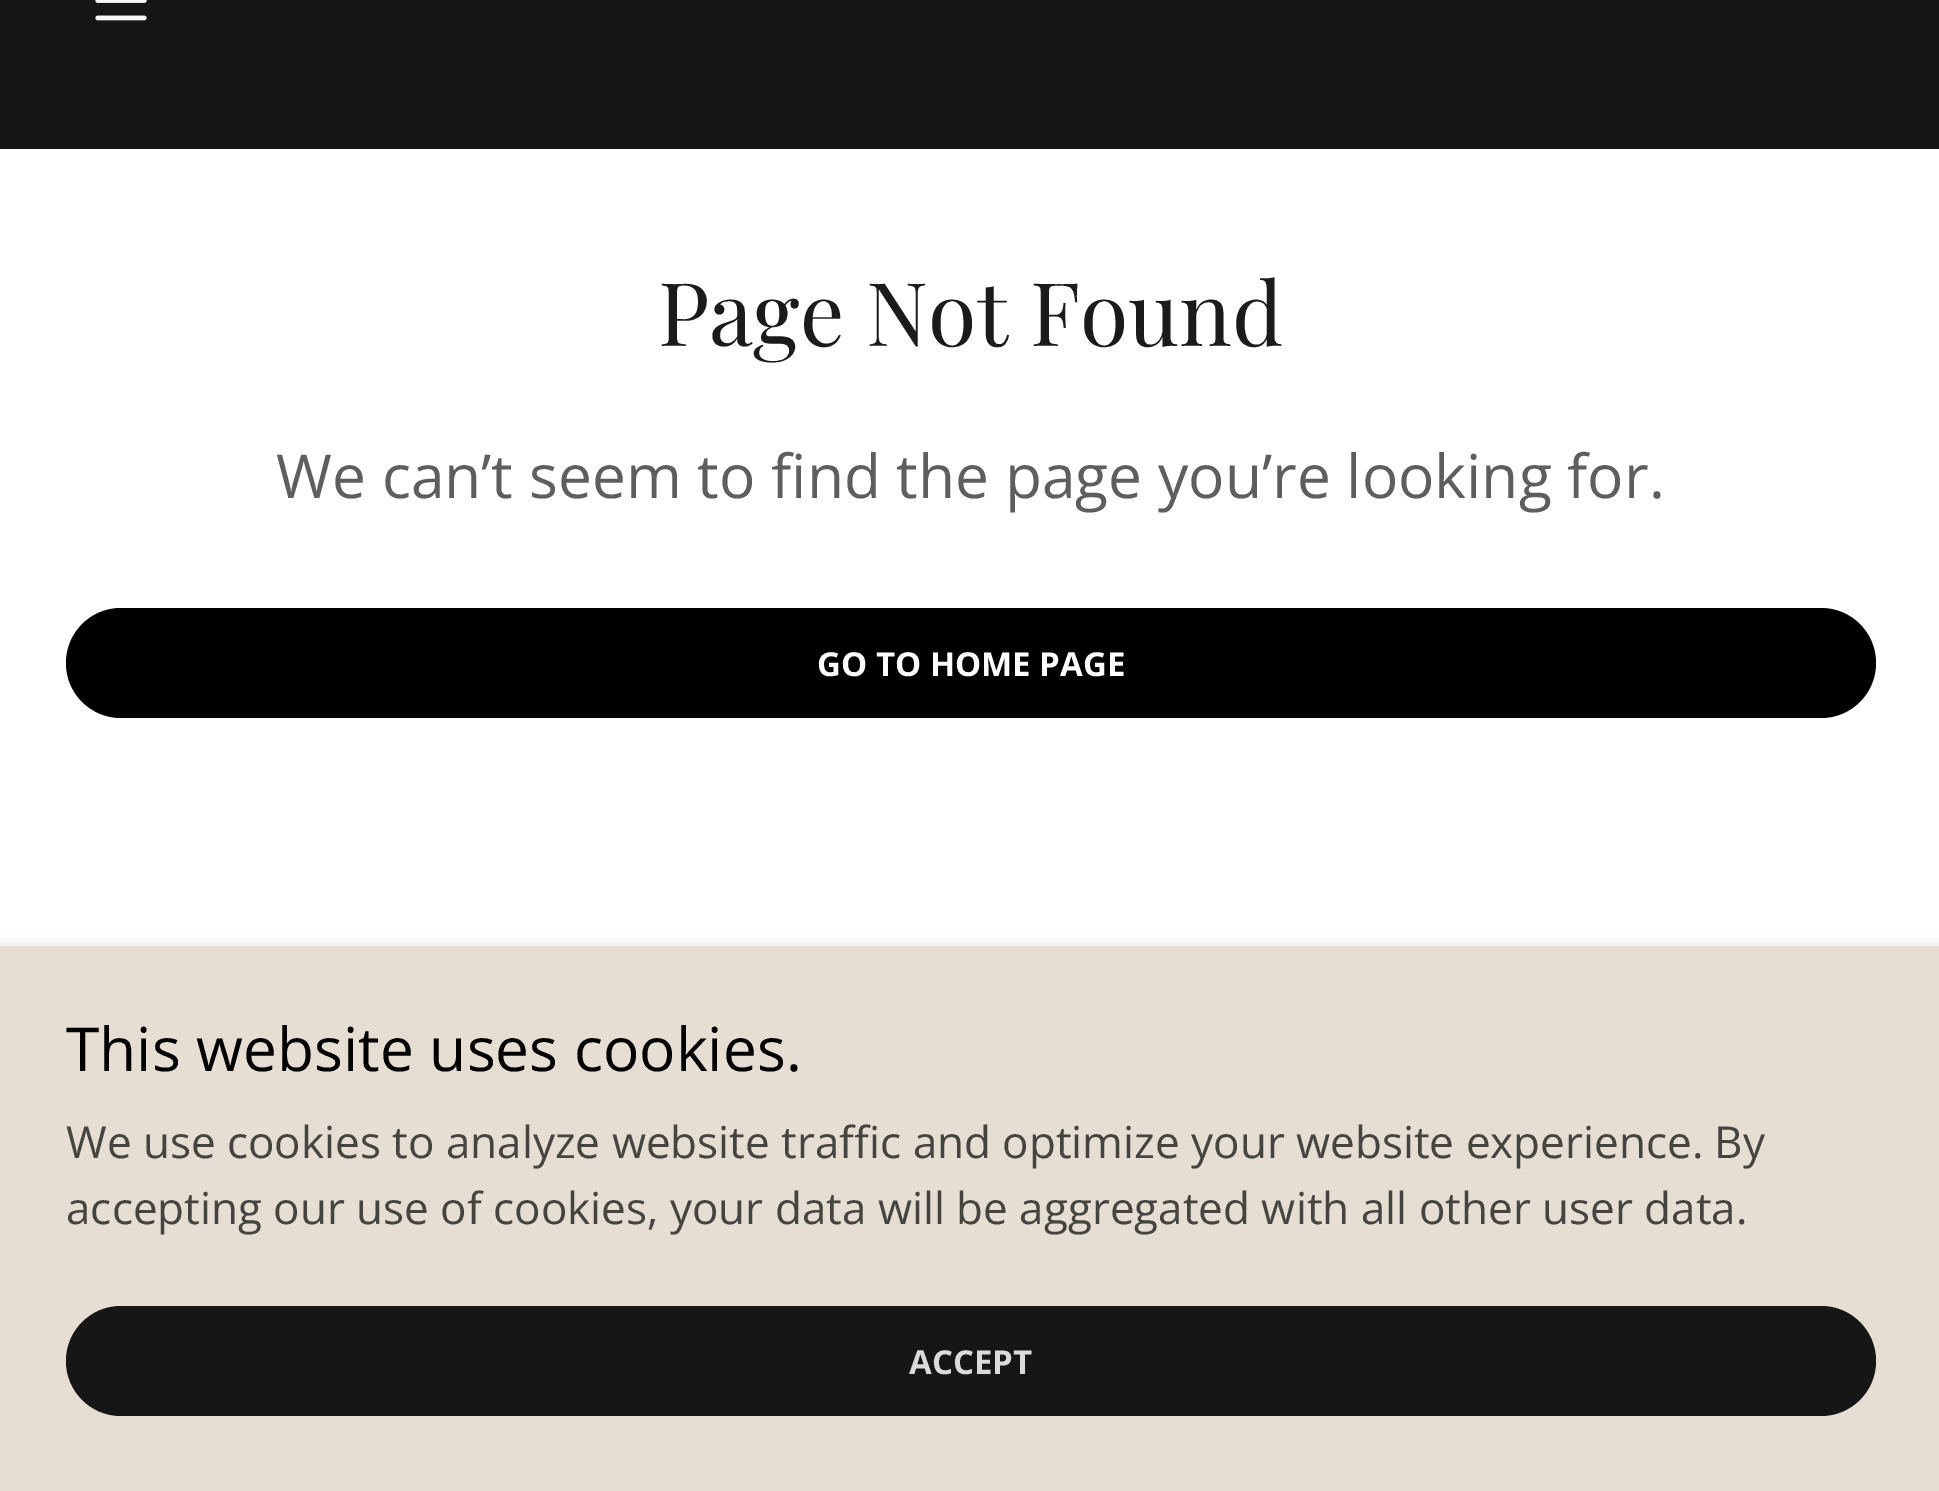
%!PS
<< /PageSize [1939 1491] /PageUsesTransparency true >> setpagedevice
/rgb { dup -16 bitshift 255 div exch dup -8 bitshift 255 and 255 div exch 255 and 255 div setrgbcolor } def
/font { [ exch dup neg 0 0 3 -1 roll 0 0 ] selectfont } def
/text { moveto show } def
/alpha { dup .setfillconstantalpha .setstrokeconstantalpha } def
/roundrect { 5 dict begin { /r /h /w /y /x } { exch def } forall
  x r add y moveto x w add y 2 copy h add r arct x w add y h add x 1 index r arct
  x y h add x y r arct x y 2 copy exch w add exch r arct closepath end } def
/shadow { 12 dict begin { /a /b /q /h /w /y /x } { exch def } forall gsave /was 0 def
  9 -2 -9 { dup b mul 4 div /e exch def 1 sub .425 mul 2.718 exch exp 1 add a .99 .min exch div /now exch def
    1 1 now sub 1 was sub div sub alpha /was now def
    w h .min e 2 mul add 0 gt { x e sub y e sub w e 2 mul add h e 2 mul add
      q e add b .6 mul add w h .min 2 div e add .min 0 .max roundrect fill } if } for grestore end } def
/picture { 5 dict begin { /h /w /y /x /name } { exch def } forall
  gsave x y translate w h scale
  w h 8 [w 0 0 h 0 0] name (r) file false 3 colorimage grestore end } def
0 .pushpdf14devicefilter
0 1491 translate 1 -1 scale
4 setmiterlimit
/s1 { /PlayfairDisplay-Regular 88 font 16#1B1B1B rgb } def
/s2 { /OpenSans-Regular 60.5 font 16#5E5E5E rgb } def
/s3 { /OpenSans-Bold 33 font 16#FFFFFF rgb } def
/s4 { /OpenSans-Regular 60.5 font 16#000000 rgb } def
/s5 { /OpenSans-Regular 44 font 16#454441 rgb } def
/s6 { /OpenSans-Bold 33 font 16#DBDBDB rgb } def
16#161616 rgb
0 0 1939 1491 rectfill
(pic1.raw) 95 0 52 21 picture
16#FFFFFF rgb
0 149 1939 797 rectfill
s1
(Page Not Found) 658 346 text
s2
(We can’t seem to find the page you’re looking for.) 276 498 text
16#000000 rgb
66 608 1810 110 55 roundrect fill
s3
(GO TO HOME PAGE) 817 676 text
16#000000 rgb
0 952 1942 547 0 8 0.3 shadow
16#E6DED2 rgb
0 946 1939 545 rectfill
s4
(This website uses cookies.) 66 1071 text
s5
(We use cookies to analyze website traffic and optimize your website experience. By) 66 1158 text
(accepting our use of cookies, your data will be aggregated with all other user data.) 66 1224 text
16#161616 rgb
66 1306 1810 110 55 roundrect fill
s6
(ACCEPT) 909 1374 text
.poppdf14devicefilter showpage
